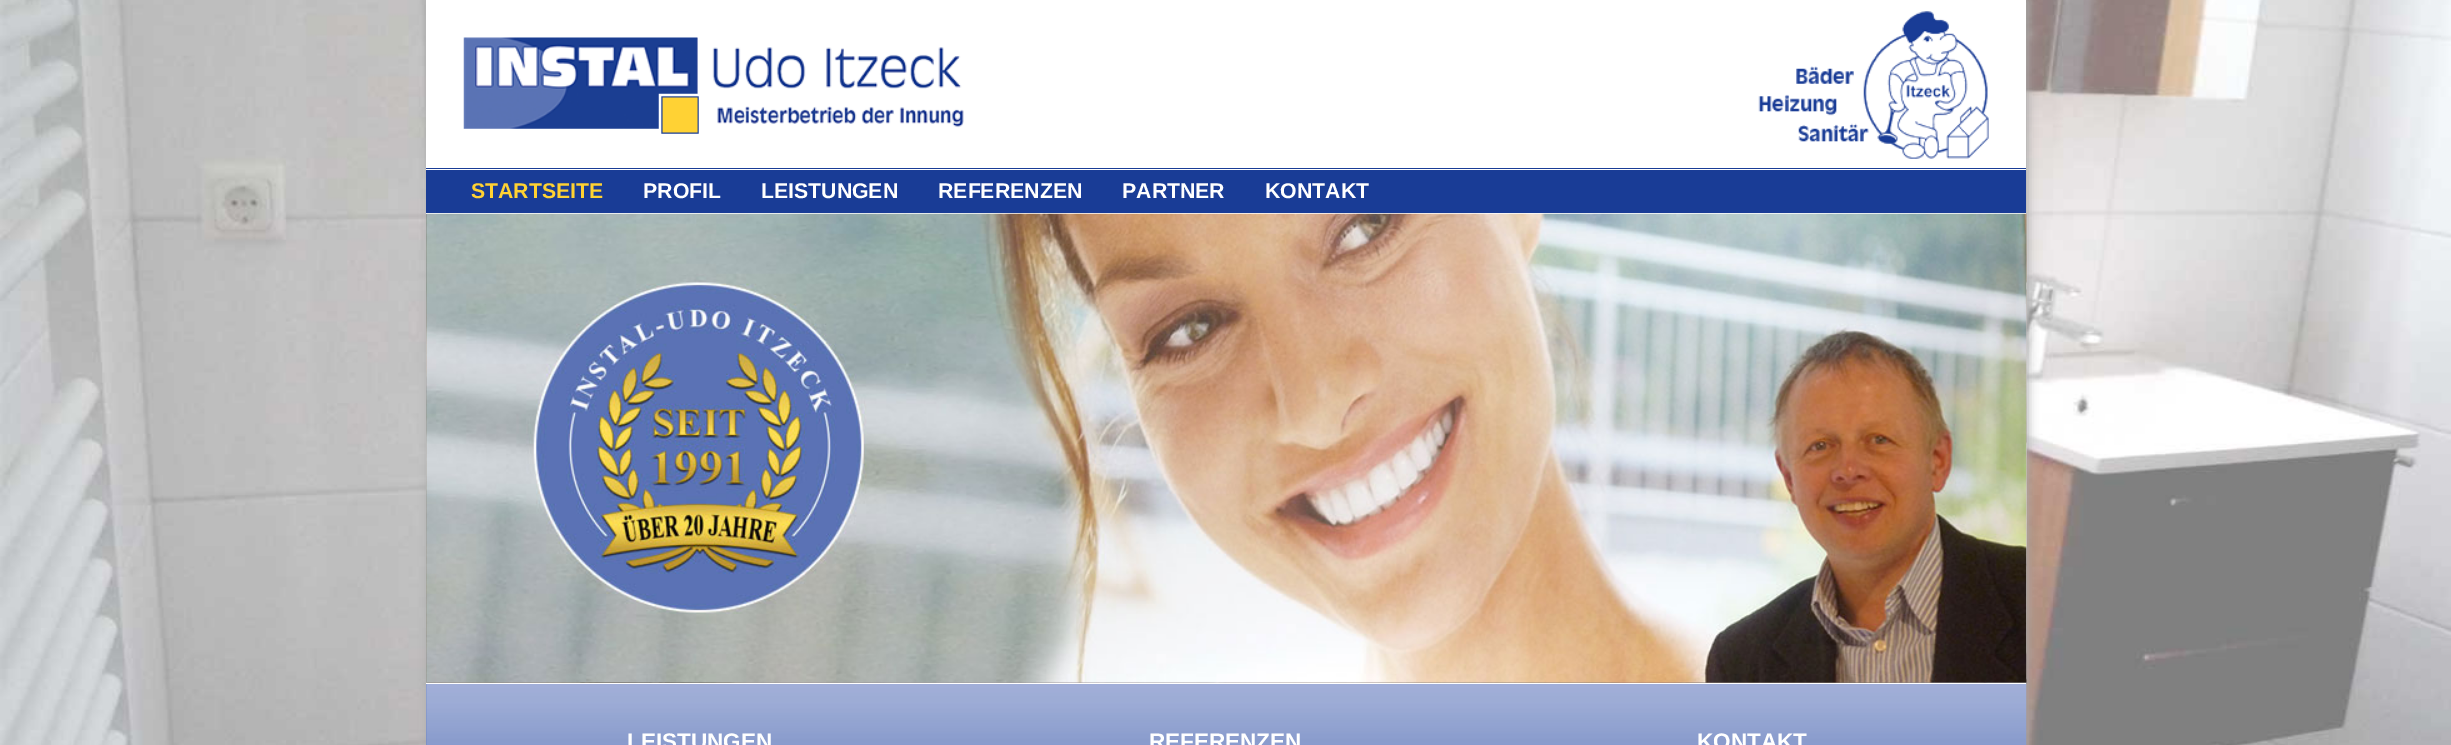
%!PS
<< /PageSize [2451 745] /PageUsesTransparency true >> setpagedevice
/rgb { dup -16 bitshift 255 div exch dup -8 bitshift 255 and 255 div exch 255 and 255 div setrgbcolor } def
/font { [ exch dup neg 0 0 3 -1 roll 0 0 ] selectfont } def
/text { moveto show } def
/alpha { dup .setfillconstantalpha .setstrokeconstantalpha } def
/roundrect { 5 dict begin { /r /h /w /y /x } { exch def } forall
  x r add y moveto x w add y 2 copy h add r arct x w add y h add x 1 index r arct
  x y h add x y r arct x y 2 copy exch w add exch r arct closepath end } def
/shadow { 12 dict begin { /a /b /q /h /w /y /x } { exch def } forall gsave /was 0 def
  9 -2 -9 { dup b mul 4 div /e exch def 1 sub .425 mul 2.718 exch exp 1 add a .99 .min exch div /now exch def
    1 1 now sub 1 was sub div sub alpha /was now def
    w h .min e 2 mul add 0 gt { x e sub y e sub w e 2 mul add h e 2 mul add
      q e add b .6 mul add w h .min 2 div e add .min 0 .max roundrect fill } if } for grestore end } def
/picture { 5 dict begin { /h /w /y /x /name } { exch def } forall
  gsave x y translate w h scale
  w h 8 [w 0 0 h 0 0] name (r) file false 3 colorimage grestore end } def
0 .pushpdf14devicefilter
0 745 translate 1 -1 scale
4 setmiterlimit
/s1 { /LiberationSans-Bold 21.25 font 16#FFD232 rgb } def
/s2 { /LiberationSans-Bold 21.25 font 16#FFFFFF rgb } def
/s3 { /LiberationSans-Bold 22.5 font 16#FFFFFF rgb } def
16#FFFFFF rgb
0 0 2451 745 rectfill
(pic1.raw) 0 0 2451 745 picture
16#A8A8A8 rgb
428 1 1600 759 0 5 1 shadow
16#FFFFFF rgb
426 0 1600 745 rectfill
16#193C96 rgb
426 168 1600 1 rectfill
(pic2.raw) 463 37 501 97 picture
(pic3.raw) 1758 11 231 148 picture
426 170 1600 43 rectfill
s1
(STARTSEITE) 471 198 text
s2
(PROFIL) 643 198 text
(LEISTUNGEN) 761 198 text
(REFERENZEN) 938 198 text
(PARTNER) 1122 198 text
(KONTAKT) 1265 198 text
(pic8.raw) 426 682 1601 63 picture
(pic4.raw) 426 213 1601 470 picture
426 683 1600 1 rectfill
(pic5.raw) 426 213 1601 470 picture
(pic6.raw) 426 213 1601 470 picture
426 213 1600 1 rectfill
(pic7.raw) 426 213 1601 470 picture
s3
(LEISTUNGEN) 627 749 text
(REFERENZEN) 1149 749 text
(KONTAKT) 1697 749 text
.poppdf14devicefilter showpage
